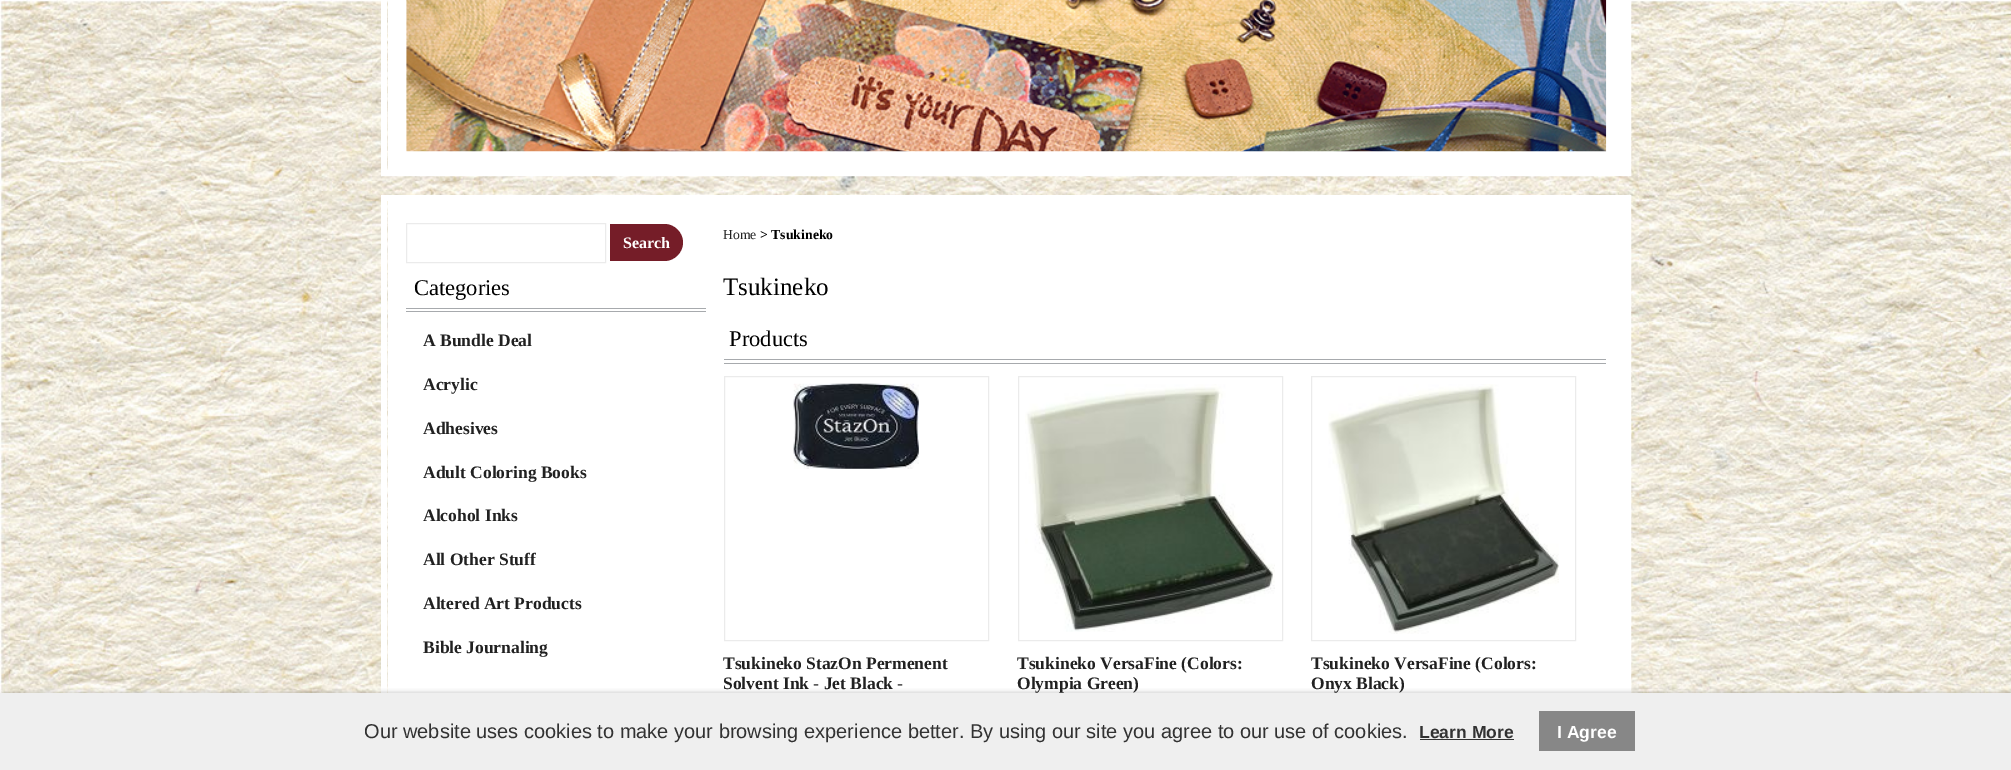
%!PS
<< /PageSize [2011 770] /PageUsesTransparency true >> setpagedevice
/rgb { dup -16 bitshift 255 div exch dup -8 bitshift 255 and 255 div exch 255 and 255 div setrgbcolor } def
/font { [ exch dup neg 0 0 3 -1 roll 0 0 ] selectfont } def
/text { moveto show } def
/alpha { dup .setfillconstantalpha .setstrokeconstantalpha } def
/roundrect { 5 dict begin { /r /h /w /y /x } { exch def } forall
  x r add y moveto x w add y 2 copy h add r arct x w add y h add x 1 index r arct
  x y h add x y r arct x y 2 copy exch w add exch r arct closepath end } def
/shadow { 12 dict begin { /a /b /q /h /w /y /x } { exch def } forall gsave /was 0 def
  9 -2 -9 { dup b mul 4 div /e exch def 1 sub .425 mul 2.718 exch exp 1 add a .99 .min exch div /now exch def
    1 1 now sub 1 was sub div sub alpha /was now def
    w h .min e 2 mul add 0 gt { x e sub y e sub w e 2 mul add h e 2 mul add
      q e add b .6 mul add w h .min 2 div e add .min 0 .max roundrect fill } if } for grestore end } def
/picture { 5 dict begin { /h /w /y /x /name } { exch def } forall
  gsave x y translate w h scale
  w h 8 [w 0 0 h 0 0] name (r) file false 3 colorimage grestore end } def
0 .pushpdf14devicefilter
0 770 translate 1 -1 scale
4 setmiterlimit
/s1 { /LiberationSerif-Bold 16 font 16#FFFFFF rgb } def
/s2 { /LiberationSerif-Regular 22.5 font 16#000000 rgb } def
/s3 { /LiberationSerif-Bold 17.5 font 16#212121 rgb } def
/s4 { /LiberationSerif-Regular 13.75 font 16#212121 rgb } def
/s5 { /LiberationSerif-Bold 13.75 font 16#000000 rgb } def
/s6 { /LiberationSerif-Regular 25 font 16#000000 rgb } def
/s7 { /LiberationSans-Regular 20 font 16#323232 rgb } def
/s8 { /LiberationSans-Bold 17.5 font 16#323232 rgb } def
/s9 { /LiberationSans-Bold 17.5 font 16#FFFFFF rgb } def
16#FFFFFF rgb
0 0 2011 770 rectfill
(pic1.raw) 0 0 2011 693 picture
388 0 1237 170 rectfill
6 setlinewidth
384 -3 1244 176 rectstroke
(pic2.raw) 406 0 1201 152 picture
388 201 1237 492 rectfill
384 198 1244 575 rectstroke
16#EBEBEB rgb
1 setlinewidth
406.5 223.5 199 39 rectstroke
16#751D28 rgb
610 224 moveto 664.5 224 lineto 674.5 224 683 232.5 683 242.5 curveto 683 252.5 674.5 261 664.5 261 curveto 610 261 lineto closepath fill
s1
(Search) 623 248 text
16#A7AAAD rgb
406 308 300 1 rectfill
406 311 300 1 rectfill
s2
(Categories) 414 295 text
s3
(A Bundle Deal) 423 346 text
(Acrylic) 423 390 text
(Adhesives) 423 434 text
(Adult Coloring Books) 423 478 text
(Alcohol Inks) 423 521 text
(All Other Stuff) 423 565 text
(Altered Art Products) 423 609 text
(Bible Journaling) 423 653 text
s4
(Home) 723 239 text
s5
(> Tsukineko) 760 239 text
s6
(Tsukineko) 723 295 text
16#A7AAAD rgb
724 359 882 1 rectfill
724 363 882 1 rectfill
s2
(Products) 729 346 text
16#EBEBEB rgb
724.5 376.5 264 264 rectstroke
(pic3.raw) 793 383 126 86 picture
s3
(Tsukineko StazOn Permenent) 723 669 text
(Solvent Ink - Jet Black -) 723 689 text
16#EBEBEB rgb
1018.5 376.5 264 264 rectstroke
(pic4.raw) 1025 384 250 248 picture
s3
(Tsukineko VersaFine \(Colors:) 1017 669 text
(Olympia Green\)) 1017 689 text
16#EBEBEB rgb
1311.5 376.5 264 264 rectstroke
(pic5.raw) 1328 384 231 250 picture
s3
(Tsukineko VersaFine \(Colors:) 1311 669 text
(Onyx Black\)) 1311 689 text
16#000000 rgb
4 695 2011 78 0 3 0.6 shadow
16#EFEFEF rgb
0 693 2011 77 rectfill
s7
(Our website uses cookies to make your browsing experience better. By using our site you agree to our use of cookies.) 364 738 text
s8
(Learn More) 1419 738 text
1420 739 94 1 rectfill
16#878787 rgb
1539 711 96 40 rectfill
s9
(I Agree) 1557 738 text
.poppdf14devicefilter showpage
